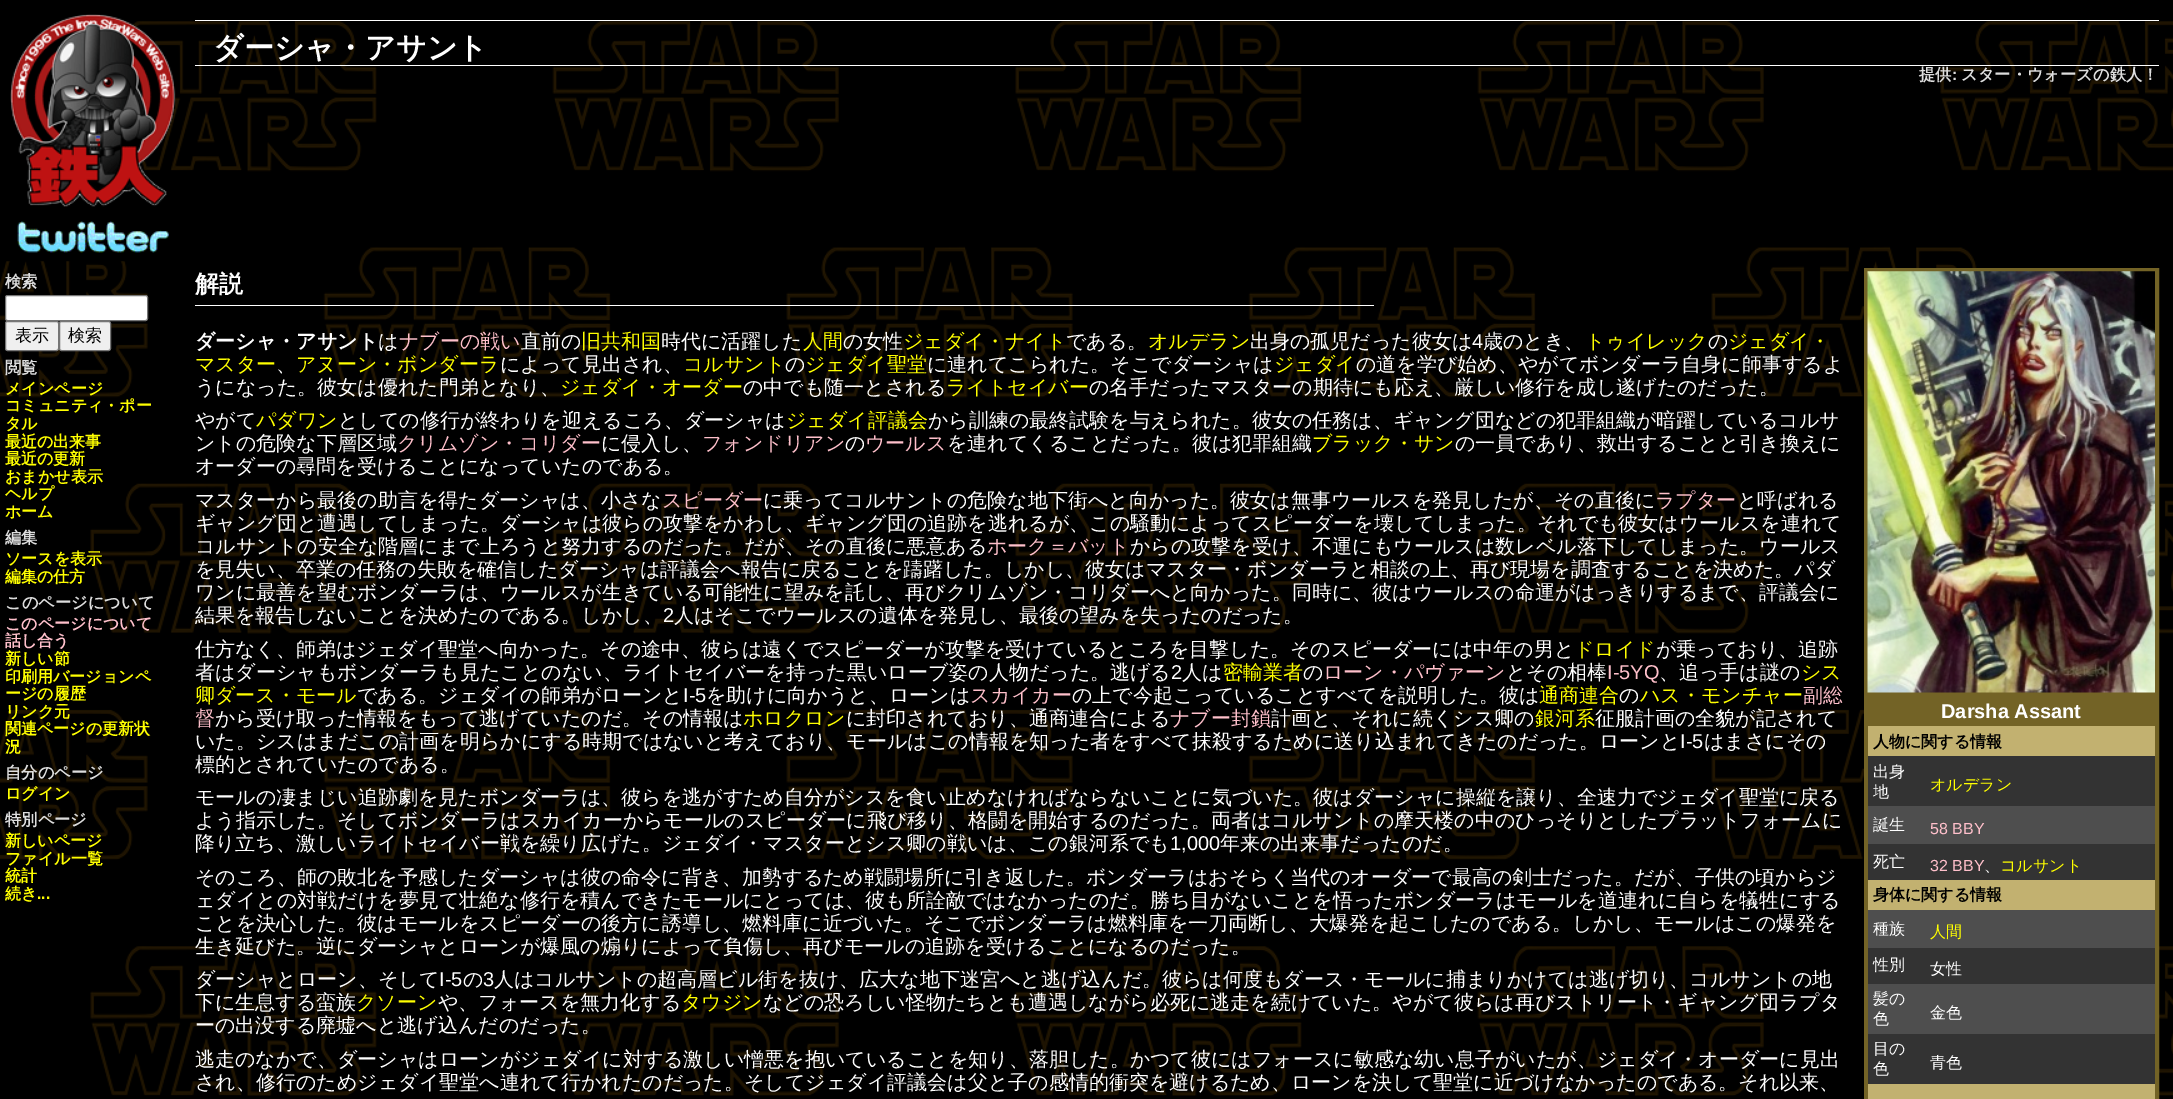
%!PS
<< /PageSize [2173 1099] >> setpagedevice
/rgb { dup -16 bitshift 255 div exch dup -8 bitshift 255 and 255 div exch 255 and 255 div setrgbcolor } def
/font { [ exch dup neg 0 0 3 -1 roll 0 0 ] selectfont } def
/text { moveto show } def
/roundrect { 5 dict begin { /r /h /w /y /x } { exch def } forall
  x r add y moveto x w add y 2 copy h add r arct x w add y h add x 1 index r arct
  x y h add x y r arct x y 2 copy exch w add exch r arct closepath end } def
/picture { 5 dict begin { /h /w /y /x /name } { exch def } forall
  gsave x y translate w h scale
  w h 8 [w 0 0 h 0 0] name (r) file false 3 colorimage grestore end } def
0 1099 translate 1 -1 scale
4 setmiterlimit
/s1 { /WenQuanYiZenHei-Bold 16.25 font 16#DDDDDD rgb } def
/s2 { /WenQuanYiZenHei-Medium 17 font 16#000000 rgb } def
/s3 { /WenQuanYiZenHei-Bold 16 font 16#FFFF00 rgb } def
/s4 { /WenQuanYiZenHei-Bold 16 font 16#FFC0CB rgb } def
/s5 { /LiberationSans-Bold 16 font 16#FFFF00 rgb } def
/s6 { /WenQuanYiZenHei-Bold 30 font 16#FFFFFF rgb } def
/s7 { /LiberationSans-Bold 16.25 font 16#DDDDDD rgb } def
/s8 { /WenQuanYiZenHei-Bold 24 font 16#FFFFFF rgb } def
/s9 { /WenQuanYiZenHei-Bold 20 font 16#FFFFFF rgb } def
/s10 { /WenQuanYiZenHei-Medium 20 font 16#FFFFFF rgb } def
/s11 { /WenQuanYiZenHei-Medium 20 font 16#FFC0CB rgb } def
/s12 { /WenQuanYiZenHei-Medium 20 font 16#FFFF00 rgb } def
/s13 { /LiberationSans-Regular 20 font 16#FFFFFF rgb } def
/s14 { /LiberationSans-Regular 20 font 16#FFC0CB rgb } def
/s15 { /LiberationSans-Bold 20 font 16#FFFFFF rgb } def
/s16 { /WenQuanYiZenHei-Bold 16 font 16#000000 rgb } def
/s17 { /WenQuanYiZenHei-Medium 16 font 16#FFFFFF rgb } def
/s18 { /WenQuanYiZenHei-Medium 16 font 16#FFFF00 rgb } def
/s19 { /LiberationSans-Regular 16 font 16#FFC0CB rgb } def
16#000000 rgb
0 0 2173 1099 rectfill
(pic1.raw) 0 21 2173 1075 picture
(pic2.raw) 10 14 166 193 picture
(pic3.raw) 6 221 163 41 picture
s1
(検索) 5 287 text
16#FFFFFF rgb
5.5 295.5 142 25 2 roundrect gsave fill grestore
16#767676 rgb
stroke
16#EFEFEF rgb
5.5 321.5 53 29 2 roundrect gsave fill grestore
16#767676 rgb
stroke
s2
(表示) 15 341 text
16#EFEFEF rgb
59.5 321.5 51 29 2 roundrect gsave fill grestore
16#767676 rgb
stroke
s2
(検索) 68 341 text
s1
(閲覧) 5 373 text
s3
(メインページ) 5 394 text
(コミュニティ・ポー) 5 411 text
(タル) 5 429 text
(最近の出来事) 5 447 text
(最近の更新) 5 464 text
(おまかせ表示) 5 482 text
(ヘルプ) 5 499 text
(ホーム) 5 517 text
s1
(編集) 5 543 text
s3
(ソースを表示) 5 564 text
(編集の仕方) 5 582 text
s1
(このページについて) 5 608 text
s4
(このページについて) 5 629 text
(話し合う) 5 646 text
s3
(新しい節) 5 664 text
(印刷用バージョンペ) 5 682 text
(ージの履歴) 5 699 text
(リンク元) 5 717 text
(関連ページの更新状) 5 734 text
(況) 5 752 text
s1
(自分のページ) 5 778 text
s3
(ログイン) 5 799 text
s1
(特別ページ) 5 825 text
s3
(新しいページ) 5 846 text
(ファイル一覧) 5 864 text
(統計) 5 881 text
(続き) 5 899 text
s5
(...) 37 899 text
16#FFFFFF rgb
195 20 1964 1 rectfill
195 65 1964 1 rectfill
s6
(ダーシャ・アサント) 213 58 text
s1
(提供) 1919 80 text
s7
(:) 1952 80 text
s1
(スター・ウォーズの鉄人！) 1961 80 text
16#FFFFFF rgb
195 305 1179 1 rectfill
s8
(解説) 195 292 text
s9
(ダーシャ・アサント) 195 348 text
s10
(は) 378 348 text
s11
(ナブーの戦い) 399 348 text
s10
(直前の) 521 348 text
s12
(旧共和国) 581 348 text
s10
(時代に活躍した) 661 348 text
s12
(人間) 803 348 text
s10
(の女性) 843 348 text
s12
(ジェダイ・ナイト) 903 348 text
s10
(である。) 1066 348 text
s12
(オルデラン) 1148 348 text
s10
(出身の孤児だった彼女は) 1250 348 text
s13
(4) 1472 348 text
s10
(歳のとき、) 1483 348 text
s12
(トゥイレック) 1585 348 text
s10
(の) 1708 348 text
s12
(ジェダイ・) 1728 348 text
(マスター) 195 371 text
s10
(、) 276 371 text
s12
(アヌーン・ボンダーラ) 296 371 text
s10
(によって見出され、) 500 371 text
s12
(コルサント) 683 371 text
s10
(の) 785 371 text
s12
(ジェダイ聖堂) 805 371 text
s10
(に連れてこられた。そこでダーシャは) 927 371 text
s12
(ジェダイ) 1274 371 text
s10
(の道を学び始め、やがてボンダーラ自身に師事するよ) 1356 371 text
(うになった。彼女は優れた門弟となり、) 195 394 text
s12
(ジェダイ・オーダー) 560 394 text
s10
(の中でも随一とされる) 743 394 text
s12
(ライトセイバー) 946 394 text
s10
(の名手だったマスターの期待にも応え、厳しい修行を成し遂げたのだった。) 1089 394 text
(やがて) 195 427 text
s12
(パダワン) 256 427 text
s10
(としての修行が終わりを迎えるころ、ダーシャは) 338 427 text
s12
(ジェダイ評議会) 786 427 text
s10
(から訓練の最終試験を与えられた。彼女の任務は、ギャング団などの犯罪組織が暗躍しているコルサ) 928 427 text
(ントの危険な下層区域) 195 450 text
s11
(クリムゾン・コリダー) 397 450 text
s10
(に侵入し、) 601 450 text
s11
(フォンドリアン) 702 450 text
s10
(の) 845 450 text
s11
(ウールス) 865 450 text
s10
(を連れてくることだった。彼は犯罪組織) 947 450 text
s12
(ブラック・サン) 1312 450 text
s10
(の一員であり、救出することと引き換えに) 1455 450 text
(オーダーの尋問を受けることになっていたのである。) 195 473 text
(マスターから最後の助言を得たダーシャは、小さな) 195 507 text
s11
(スピーダー) 662 507 text
s10
(に乗ってコルサントの危険な地下街へと向かった。彼女は無事ウールスを発見したが、その直後に) 763 507 text
s11
(ラプター) 1655 507 text
s10
(と呼ばれる) 1737 507 text
(ギャング団と遭遇してしまった。ダーシャは彼らの攻撃をかわし、ギャング団の追跡を逃れるが、この騒動によってスピーダーを壊してしまった。それでも彼女はウールスを連れて) 195 530 text
(コルサントの安全な階層にまで上ろうと努力するのだった。だが、その直後に悪意ある) 195 553 text
s11
(ホーク＝バット) 987 553 text
s10
(からの攻撃を受け、不運にもウールスは数レベル落下してしまった。ウールス) 1130 553 text
(を見失い、卒業の任務の失敗を確信したダーシャは評議会へ報告に戻ることを躊躇した。しかし、彼女はマスター・ボンダーラと相談の上、再び現場を調査することを決めた。パダ) 195 576 text
(ワンに最善を望むボンダーラは、ウールスが生きている可能性に望みを託し、再びクリムゾン・コリダーへと向かった。同時に、彼はウールスの命運がはっきりするまで、評議会に) 195 599 text
(結果を報告しないことを決めたのである。しかし、) 195 622 text
s13
(2) 663 622 text
s10
(人はそこでウールスの遺体を発見し、最後の望みを失ったのだった。) 674 622 text
(仕方なく、師弟はジェダイ聖堂へ向かった。その途中、彼らは遠くでスピーダーが攻撃を受けているところを目撃した。そのスピーダーには中年の男と) 195 656 text
s12
(ドロイド) 1574 656 text
s10
(が乗っており、追跡) 1656 656 text
(者はダーシャもボンダーラも見たことのない、ライトセイバーを持った黒いローブ姿の人物だった。逃げる) 195 679 text
s13
(2) 1171 679 text
s10
(人は) 1182 679 text
s12
(密輸業者) 1223 679 text
s10
(の) 1303 679 text
s11
(ローン・パヴァーン) 1323 679 text
s10
(とその相棒) 1506 679 text
s14
(I-5YQ) 1607 679 text
s10
(、追っ手は謎の) 1659 679 text
s12
(シス) 1801 679 text
(卿ダース・モール) 195 702 text
s10
(である。ジェダイの師弟がローンと) 357 702 text
s13
(I-5) 683 702 text
s10
(を助けに向かうと、ローンは) 706 702 text
s11
(スカイカー) 970 702 text
s10
(の上で今起こっていることすべてを説明した。彼は) 1072 702 text
s12
(通商連合) 1539 702 text
s10
(の) 1619 702 text
s12
(ハス・モンチャー) 1640 702 text
s11
(副総) 1803 702 text
(督) 195 725 text
s10
(から受け取った情報をもって逃げていたのだ。その情報は) 215 725 text
s12
(ホロクロン) 743 725 text
s10
(に封印されており、通商連合による) 846 725 text
s11
(ナブー封鎖) 1170 725 text
s10
(計画と、それに続くシス卿の) 1271 725 text
s12
(銀河系) 1535 725 text
s10
(征服計画の全貌が記されて) 1595 725 text
(いた。シスはまだこの計画を明らかにする時期ではないと考えており、モールはこの情報を知った者をすべて抹殺するために送り込まれてきたのだった。ローンと) 195 748 text
s13
(I-5) 1680 748 text
s10
(はまさにその) 1704 748 text
(標的とされていたのである。) 195 771 text
16#736326 rgb
4 setlinewidth
1866 270 291 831 rectstroke
16#333333 rgb
1868 756 287 328 rectfill
16#736326 rgb
1868 272 287 454 rectfill
(pic4.raw) 1867 271 288 422 picture
s15
(Darsha Assant) 1941 718 text
16#C2B170 rgb
1868 726 287 30 rectfill
s16
(人物に関する情報) 1873 747 text
s17
(出身) 1873 777 text
(地) 1873 797 text
s18
(オルデラン) 1930 790 text
16#4E4E4E rgb
1868 806 287 38 rectfill
s17
(誕生) 1873 830 text
s19
(58 BBY) 1930 834 text
s17
(死亡) 1873 867 text
s19
(32 BBY) 1930 871 text
s17
(、) 1984 871 text
s18
(コルサント) 2000 871 text
16#C2B170 rgb
1868 880 287 30 rectfill
s16
(身体に関する情報) 1873 900 text
16#4E4E4E rgb
1868 910 287 38 rectfill
s17
(種族) 1873 934 text
s18
(人間) 1930 937 text
s17
(性別) 1873 970 text
(女性) 1930 974 text
16#4E4E4E rgb
1868 984 287 50 rectfill
s17
(髪の) 1873 1004 text
(色) 1873 1024 text
(金色) 1930 1018 text
(目の) 1873 1054 text
(色) 1873 1074 text
(青色) 1930 1068 text
16#C2B170 rgb
1868 1084 287 15 rectfill
s10
(モールの凄まじい追跡劇を見たボンダーラは、彼らを逃がすため自分がシスを食い止めなければならないことに気づいた。彼はダーシャに操縦を譲り、全速力でジェダイ聖堂に戻る) 195 804 text
(よう指示した。そしてボンダーラはスカイカーからモールのスピーダーに飛び移り、格闘を開始するのだった。両者はコルサントの摩天楼の中のひっそりとしたプラットフォームに) 195 827 text
(降り立ち、激しいライトセイバー戦を繰り広げた。ジェダイ・マスターとシス卿の戦いは、この銀河系でも) 195 850 text
s13
(1,000) 1170 850 text
s10
(年来の出来事だったのだ。) 1220 850 text
(そのころ、師の敗北を予感したダーシャは彼の命令に背き、加勢するため戦闘場所に引き返した。ボンダーラはおそらく当代のオーダーで最高の剣士だった。だが、子供の頃からジ) 195 884 text
(ェダイとの対戦だけを夢見て壮絶な修行を積んできたモールにとっては、彼も所詮敵ではなかったのだ。勝ち目がないことを悟ったボンダーラはモールを道連れに自らを犠牲にする) 195 907 text
(ことを決心した。彼はモールをスピーダーの後方に誘導し、燃料庫に近づいた。そこでボンダーラは燃料庫を一刀両断し、大爆発を起こしたのである。しかし、モールはこの爆発を) 195 930 text
(生き延びた。逆にダーシャとローンが爆風の煽りによって負傷し、再びモールの追跡を受けることになるのだった。) 195 953 text
(ダーシャとローン、そして) 195 986 text
s13
(I-5) 439 986 text
s10
(の) 463 986 text
s13
(3) 483 986 text
s10
(人はコルサントの超高層ビル街を抜け、広大な地下迷宮へと逃げ込んだ。彼らは何度もダース・モールに捕まりかけては逃げ切り、コルサントの地) 494 986 text
(下に生息する蛮族) 195 1009 text
s12
(クソーン) 356 1009 text
s10
(や、フォースを無力化する) 438 1009 text
s12
(タウジン) 681 1009 text
s10
(などの恐ろしい怪物たちとも遭遇しながら必死に逃走を続けていた。やがて彼らは再びストリート・ギャング団ラプタ) 763 1009 text
(ーの出没する廃墟へと逃げ込んだのだった。) 195 1032 text
(逃走のなかで、ダーシャはローンがジェダイに対する激しい憎悪を抱いていることを知り、落胆した。かつて彼にはフォースに敏感な幼い息子がいたが、ジェダイ・オーダーに見出) 195 1066 text
(され、修行のためジェダイ聖堂へ連れて行かれたのだった。そしてジェダイ評議会は父と子の感情的衝突を避けるため、ローンを決して聖堂に近づけなかったのである。それ以来、) 195 1089 text
showpage
